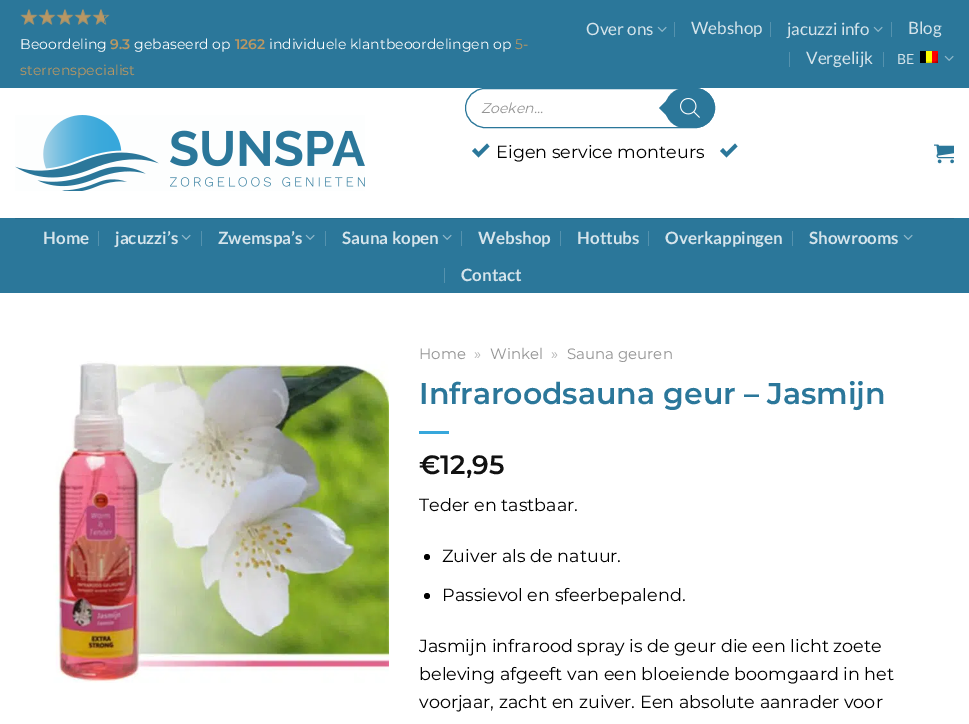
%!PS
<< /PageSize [969 724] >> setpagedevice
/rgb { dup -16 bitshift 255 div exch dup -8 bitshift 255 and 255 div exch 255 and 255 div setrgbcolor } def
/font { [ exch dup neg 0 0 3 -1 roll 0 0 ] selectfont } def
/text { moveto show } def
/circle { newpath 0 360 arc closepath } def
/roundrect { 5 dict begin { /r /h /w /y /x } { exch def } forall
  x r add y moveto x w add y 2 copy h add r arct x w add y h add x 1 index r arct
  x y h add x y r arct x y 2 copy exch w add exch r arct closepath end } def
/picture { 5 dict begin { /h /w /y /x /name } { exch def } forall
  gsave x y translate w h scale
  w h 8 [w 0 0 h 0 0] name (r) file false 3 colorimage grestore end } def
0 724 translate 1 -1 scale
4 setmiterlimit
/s1 { /Montserrat-Regular 14 font 16#FFFFFF rgb } def
/s2 { /Montserrat-SemiBold 14 font 16#B99763 rgb } def
/s3 { /Montserrat-Regular 14 font 16#B99763 rgb } def
/s4 { /Lato-Regular 17 font 16#D5E4EB rgb } def
/s5 { /Lato-Regular 14 font 16#D5E4EB rgb } def
/s6 { /Montserrat-Italic 14 font 16#949494 rgb } def
/s7 { /Montserrat-Regular 17.6 font 16#000000 rgb } def
/s8 { /Lato-Bold 17 font 16#D5E4EB rgb } def
/s9 { /Montserrat-Regular 15 font 16#949494 rgb } def
/s10 { /Montserrat-Regular 15 font 16#B2B2B2 rgb } def
/s11 { /Montserrat-SemiBold 29.9 font 16#2B779A rgb } def
/s12 { /Montserrat-SemiBold 26.5 font 16#111111 rgb } def
16#FFFFFF rgb
0 0 969 724 rectfill
16#2B779A rgb
0 0 969 88 rectfill
(pic1.raw) 20 9 90 16 picture
(pic2.raw) 21 9 83 15 picture
s1
(Beoordeling) 20 49 text
s2
(9.3) 110 49 text
s1
(gebaseerd op) 134 49 text
s2
(1262) 235 49 text
s1
(individuele klantbeoordelingen op) 269 49 text
s3
(5-) 515 49 text
(sterrenspecialist) 20 75 text
s4
(Over ons) 586 35 text
(pic3.raw) 657 26 10 6 picture
16#5592AE rgb
674 22 1 15 rectfill
s4
(Webshop) 691 34 text
16#5592AE rgb
770 22 1 15 rectfill
s4
(jacuzzi info) 787 35 text
(pic3.raw) 873 26 10 6 picture
16#5592AE rgb
891 22 1 15 rectfill
s4
(Blog) 908 34 text
16#5592AE rgb
789 52 1 15 rectfill
s4
(Vergelijk) 806 64 text
16#5592AE rgb
883 52 1 15 rectfill
s5
(BE) 897 64 text
(pic4.raw) 920 51 18 12 picture
(pic3.raw) 944 55 10 6 picture
(pic5.raw) 15 115 350 76 picture
16#2B779A rgb
465.5 88.5 249 39 19.5 roundrect stroke
s6
(Zoeken...) 481 113 text
16#2B779A rgb
665 88 50 40 20 roundrect fill
667 100 moveto 667 116 lineto 659 108 lineto closepath fill
(pic6.raw) 680 98 20 20 picture
487 143.5 moveto 478.5 152 lineto 475 148 lineto 472 151 lineto 478.5 157.5 lineto 489.5 146.5 lineto closepath fill
s7
(Eigen service monteurs) 496 158 text
16#2B779A rgb
735 143.5 moveto 726.5 152 lineto 723 148 lineto 720 151 lineto 726.5 157.5 lineto 737.5 146.5 lineto closepath fill
(pic7.raw) 934 144 20 20 picture
0 218 969 75 rectfill
16#276B8B rgb
15 218 939 1 rectfill
s8
(Home) 43 244 text
16#5592AE rgb
98 231 1 15 rectfill
s8
(jacuzzi’s) 115 244 text
(pic3.raw) 181 234 10 6 picture
16#5592AE rgb
201 231 1 15 rectfill
s8
(Zwemspa’s) 218 244 text
(pic3.raw) 305 234 10 6 picture
16#5592AE rgb
325 231 1 15 rectfill
s8
(Sauna kopen) 342 244 text
(pic3.raw) 442 234 10 6 picture
16#5592AE rgb
461 231 1 15 rectfill
s8
(Webshop) 478 244 text
16#5592AE rgb
560 231 1 15 rectfill
s8
(Hottubs) 577 244 text
16#5592AE rgb
648 231 1 15 rectfill
s8
(Overkappingen) 665 244 text
16#5592AE rgb
792 231 1 15 rectfill
s8
(Showrooms) 809 244 text
(pic3.raw) 903 234 10 6 picture
16#5592AE rgb
444 268 1 15 rectfill
s8
(Contact) 461 281 text
(pic8.raw) 53 361 336 322 picture
s9
(Home) 419 359 text
s10
(») 474 359 text
s9
(Winkel) 490 359 text
s10
(») 551 359 text
s9
(Sauna geuren) 567 359 text
s11
(Infraroodsauna geur – Jasmijn) 419 404 text
16#37A7DB rgb
419 431 30 3 rectfill
s12
(€12,95) 419 474 text
s7
(Teder en tastbaar.) 419 511 text
427 557 3 circle fill
(Zuiver als de natuur.) 442 562 text
427 596 3 circle fill
(Passievol en sfeerbepalend.) 442 601 text
(Jasmijn infrarood spray is de geur die een licht zoete) 419 652 text
(beleving afgeeft van een bloeiende boomgaard in het) 419 680 text
(voorjaar, zacht en zuiver. Een absolute aanrader voor) 419 708 text
showpage
